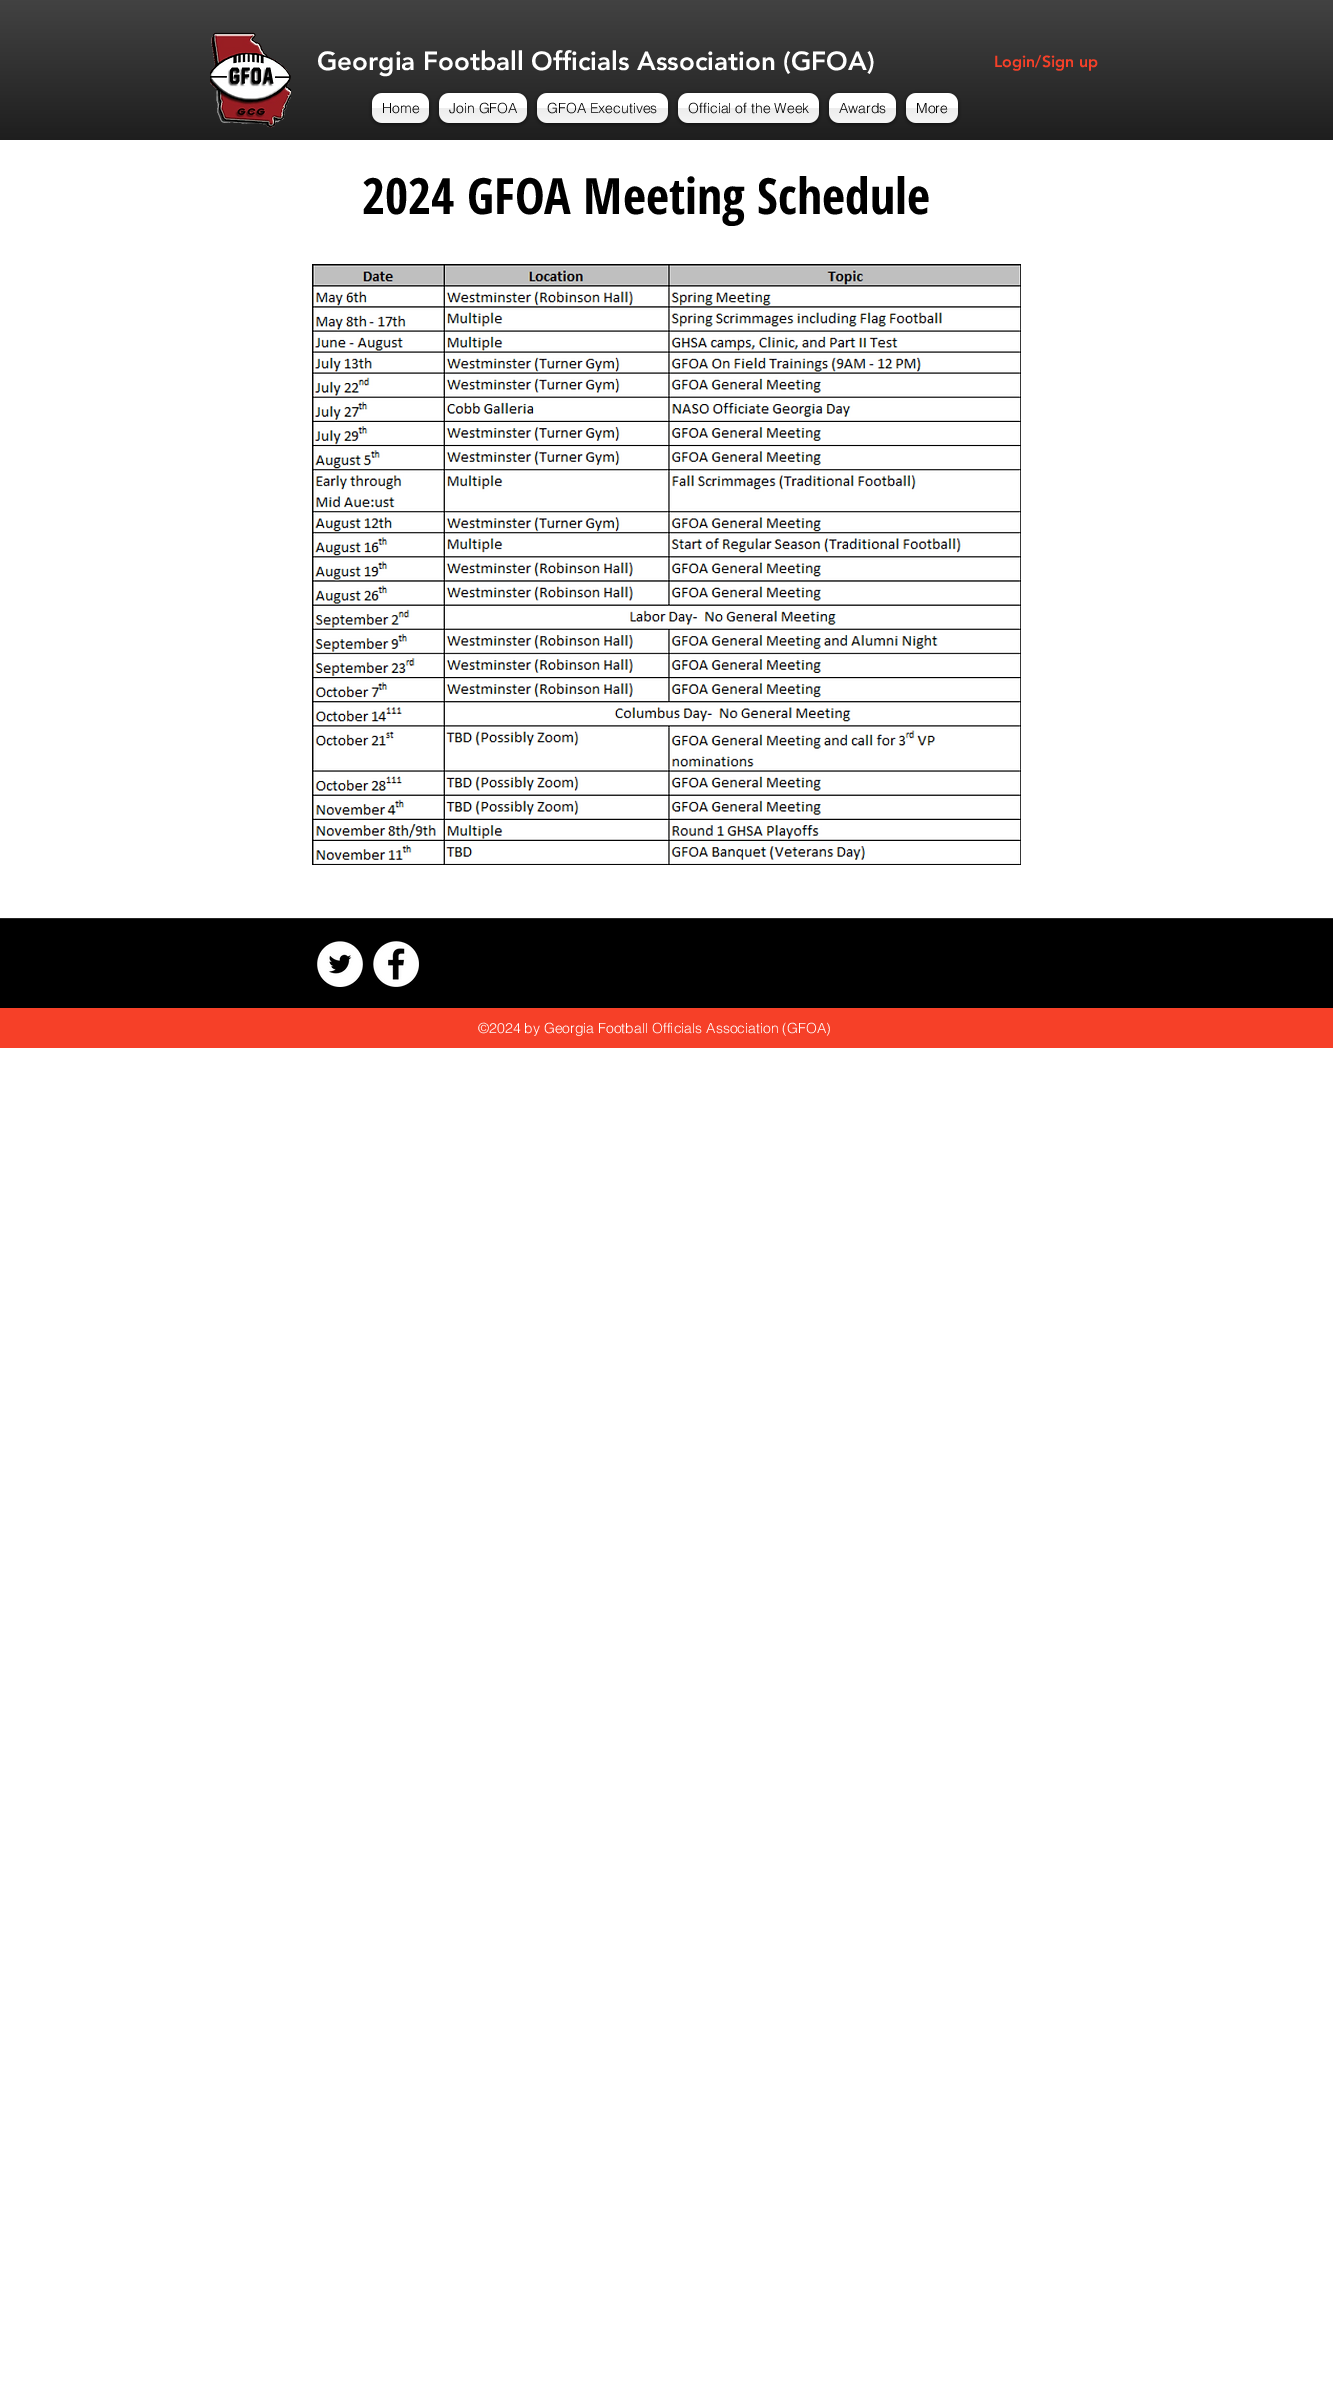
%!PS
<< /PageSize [1333 2398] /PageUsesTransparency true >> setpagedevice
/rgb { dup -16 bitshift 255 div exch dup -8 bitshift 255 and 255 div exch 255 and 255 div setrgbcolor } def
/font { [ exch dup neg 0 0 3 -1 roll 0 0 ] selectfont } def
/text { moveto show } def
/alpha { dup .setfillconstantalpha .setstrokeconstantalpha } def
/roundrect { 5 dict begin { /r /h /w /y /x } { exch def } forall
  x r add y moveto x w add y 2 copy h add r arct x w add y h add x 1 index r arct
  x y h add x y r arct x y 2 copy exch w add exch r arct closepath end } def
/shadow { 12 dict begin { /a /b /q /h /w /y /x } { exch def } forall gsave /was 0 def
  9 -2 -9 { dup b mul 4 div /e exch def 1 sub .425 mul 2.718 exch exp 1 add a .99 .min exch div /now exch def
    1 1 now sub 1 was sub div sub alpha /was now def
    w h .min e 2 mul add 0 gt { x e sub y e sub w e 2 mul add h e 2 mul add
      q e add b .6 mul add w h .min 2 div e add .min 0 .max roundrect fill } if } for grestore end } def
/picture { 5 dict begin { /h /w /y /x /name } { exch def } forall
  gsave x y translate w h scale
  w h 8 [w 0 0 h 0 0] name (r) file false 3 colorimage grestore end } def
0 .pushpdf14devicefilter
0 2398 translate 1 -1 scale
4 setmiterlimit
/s1 { /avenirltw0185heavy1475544-Black 26 font 16#FFFFFF rgb } def
/s2 { /avenirltw0185heavy1475544-Black 16 font 16#F64028 rgb } def
/s3 { /helvetica-Light 14 font 16#000000 rgb } def
/s4 { /OpenSansCondensed-Bold 50 font 16#000000 rgb } def
/s5 { /helvetica-Light 14 font 16#FFFFFF rgb } def
16#FFFFFF rgb
0 0 1333 2398 rectfill
16#000000 rgb
0 0 1333 140 rectfill
(pic1.raw) 0 0 1333 140 picture
(pic2.raw) 210 32 81 96 picture
s1
(Georgia Football Officials Association \(GFOA\)) 317 70 text
s2
(Login/Sign up) 994 67 text
16#000000 rgb
372 94 57 30 10 2 0.6 shadow
16#FFFFFF rgb
372 93 57 30 10 roundrect fill
(pic3.raw) 372 93 57 30 picture
s3
(Home) 382 113 text
439 94 88 30 10 2 0.6 shadow
16#FFFFFF rgb
439 93 88 30 10 roundrect fill
(pic4.raw) 439 93 88 30 picture
s3
(Join GFOA) 449 113 text
537 94 131 30 10 2 0.6 shadow
16#FFFFFF rgb
537 93 131 30 10 roundrect fill
(pic5.raw) 537 93 131 30 picture
s3
(GFOA Executives) 547 113 text
678 94 141 30 10 2 0.6 shadow
16#FFFFFF rgb
678 93 141 30 10 roundrect fill
(pic6.raw) 678 93 141 30 picture
s3
(Official of the Week) 688 113 text
829 94 67 30 10 2 0.6 shadow
16#FFFFFF rgb
829 93 67 30 10 roundrect fill
(pic7.raw) 829 93 67 30 picture
s3
(Awards) 839 113 text
906 94 52 30 10 2 0.6 shadow
16#FFFFFF rgb
906 93 52 30 10 roundrect fill
(pic8.raw) 906 93 52 30 picture
s3
(More) 916 113 text
s4
(2024 GFOA Meeting Schedule) 362 214 text
(pic9.raw) 312 264 709 601 picture
0 919 1333 89 rectfill
16#262626 rgb
0 918 1333 1 rectfill
(pic10.raw) 317 941 46 46 picture
(pic11.raw) 373 941 46 46 picture
16#F64028 rgb
0 1008 1333 40 rectfill
s5
(©2024 by Georgia Football Officials Association \(GFOA\)) 478 1033 text
.poppdf14devicefilter showpage
